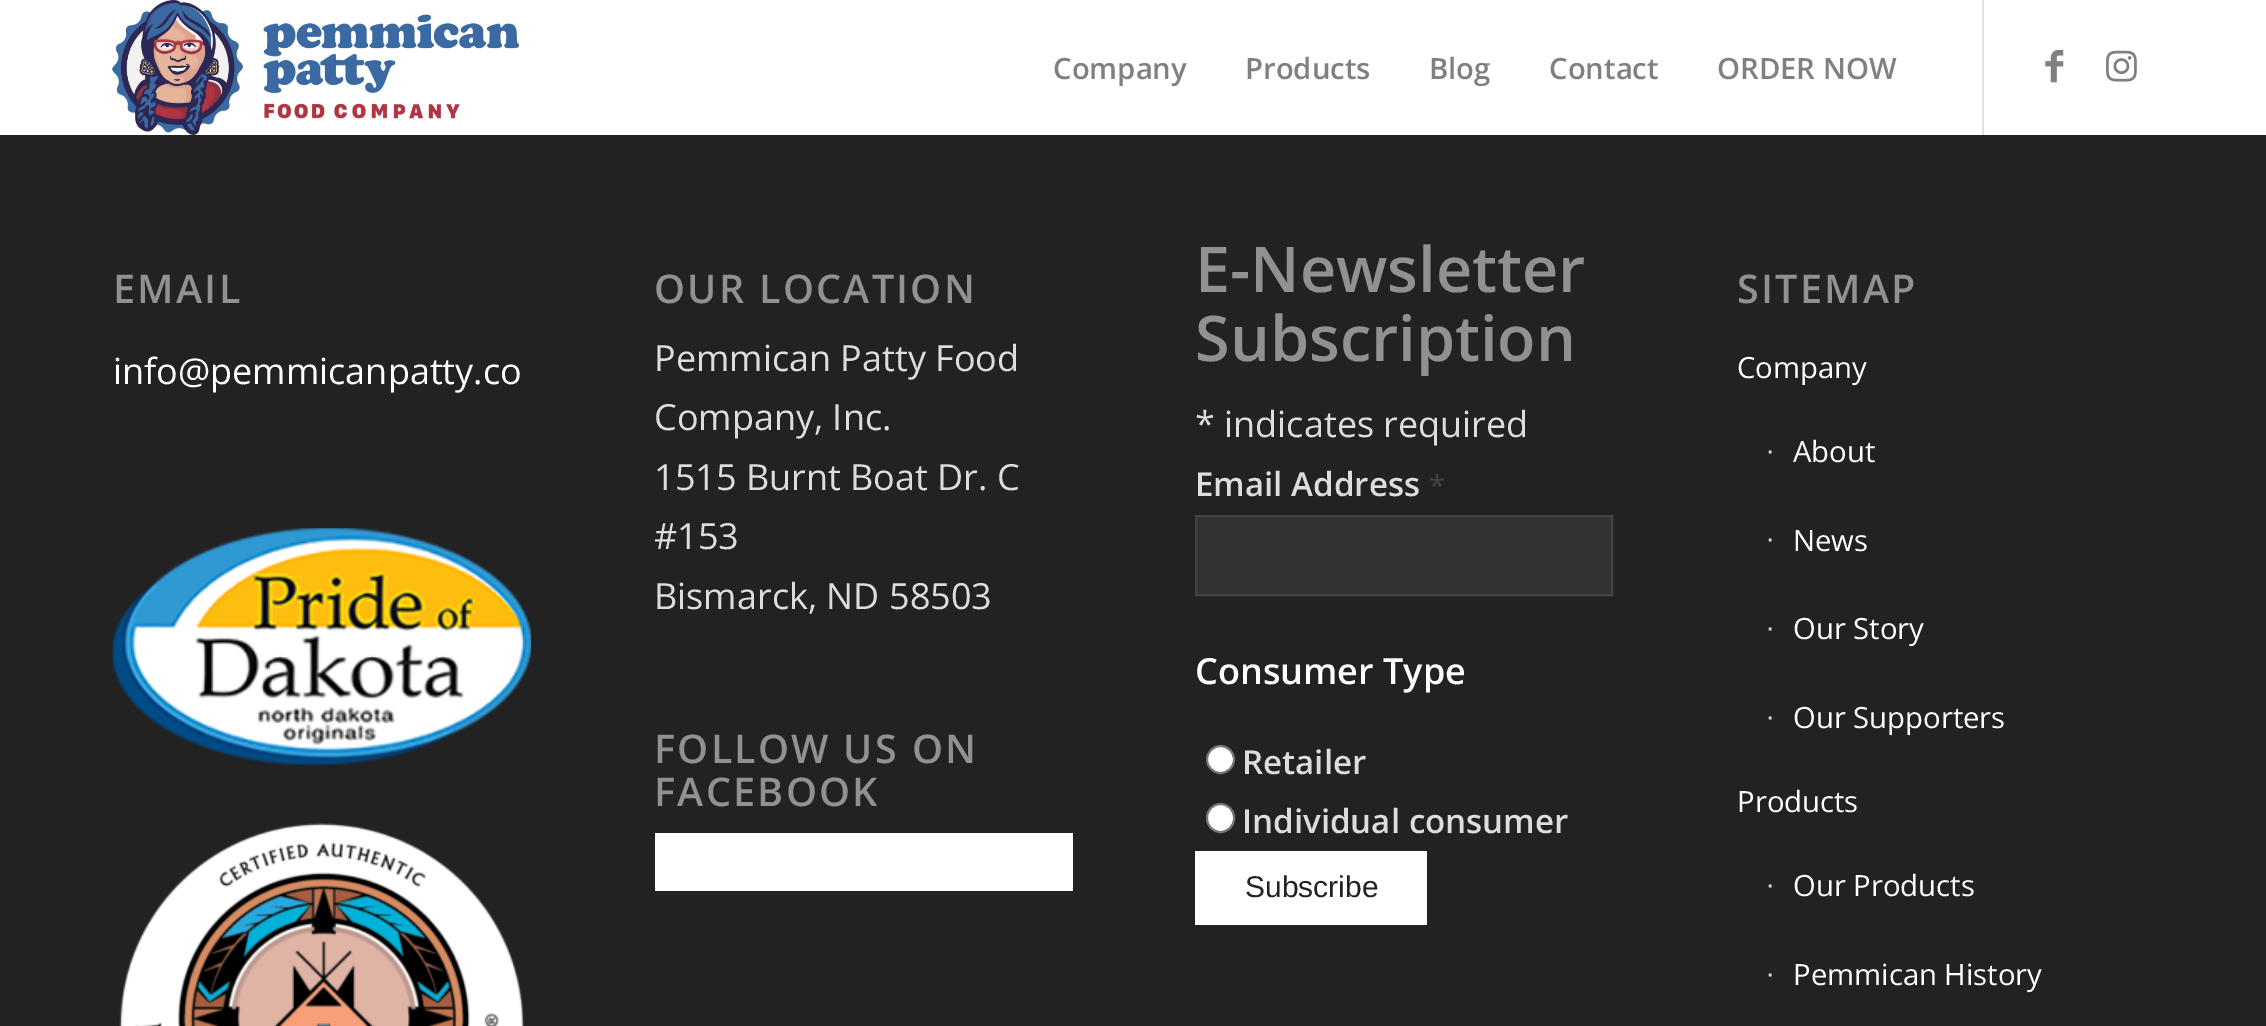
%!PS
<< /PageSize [2266 1026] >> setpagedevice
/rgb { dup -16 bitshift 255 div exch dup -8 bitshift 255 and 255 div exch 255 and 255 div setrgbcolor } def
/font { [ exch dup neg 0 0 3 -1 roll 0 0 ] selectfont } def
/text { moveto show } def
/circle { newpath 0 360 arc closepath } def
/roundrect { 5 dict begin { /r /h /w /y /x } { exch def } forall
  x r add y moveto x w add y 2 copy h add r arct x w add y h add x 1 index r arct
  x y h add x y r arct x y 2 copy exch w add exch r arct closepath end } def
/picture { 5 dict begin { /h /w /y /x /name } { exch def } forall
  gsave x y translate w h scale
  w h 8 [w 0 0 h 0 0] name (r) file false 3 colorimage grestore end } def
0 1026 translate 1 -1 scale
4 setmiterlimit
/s1 { /OpenSans-SemiBold 29.25 font 16#808080 rgb } def
/s2 { /OpenSans-Regular 36 font 16#FFFFFF rgb } def
/s3 { /OpenSans-Regular 36 font 16#DDDDDD rgb } def
/s4 { /OpenSans-SemiBold 63 font 16#919191 rgb } def
/s5 { /OpenSans-SemiBold 33.1 font 16#DDDDDD rgb } def
/s6 { /OpenSans-Regular 29.25 font 16#444444 rgb } def
/s7 { /OpenSans-SemiBold 36 font 16#FFFFFF rgb } def
/s8 { /LiberationSans-Regular 30 font 16#222222 rgb } def
/s9 { /OpenSans-Regular 29.25 font 16#FFFFFF rgb } def
/s10 { /LiberationSans-Regular 29.25 font 16#DDDDDD rgb } def
16#222222 rgb
0 0 2266 1026 rectfill
16#FFFFFF rgb
0 0 2266 135 rectfill
(pic1.raw) 112 0 407 135 picture
16#E1E1E1 rgb
1982 0 2 135 rectfill
s1
(Company) 1053 79 text
(Products) 1245 79 text
(Blog) 1429 79 text
(Contact) 1549 79 text
(ORDER NOW) 1717 79 text
(pic2.raw) 2045 49 19 34 picture
(pic3.raw) 2106 50 31 32 picture
/OpenSans-SemiBold 39.5 font
16#919191 rgb
113 303 moveto 2.25 0 (EMAIL) ashow
s2
(info@pemmicanpatty.co) 113 384 text
(pic4.raw) 112 528 419 237 picture
(pic5.raw) 119 823 406 203 picture
/OpenSans-SemiBold 39.5 font
16#919191 rgb
654 303 moveto 2.25 0 (OUR LOCATION) ashow
s3
(Pemmican Patty Food) 654 371 text
(Company, Inc.) 654 430 text
(1515 Burnt Boat Dr. C) 654 490 text
gsave
655 234 418 392 rectclip
(#153) 654 549 text
grestore
(Bismarck, ND 58503) 654 609 text
/OpenSans-SemiBold 39.5 font
16#919191 rgb
654 763 moveto 2.25 0 (FOLLOW US ON) ashow
654 806 moveto 2.25 0 (FACEBOOK) ashow
16#FFFFFF rgb
655 833 418 58 rectfill
s4
(E-Newsletter) 1195 292 text
(Subscription) 1195 361 text
s3
(* indicates required) 1195 437 text
s5
(Email Address) 1195 496 text
s6
(*) 1429 496 text
16#333333 rgb
1196 516 moveto 1612 516 lineto 1612 595 lineto 1196 595 lineto closepath gsave fill grestore
16#444444 rgb
2 setlinewidth
stroke
s7
(Consumer Type) 1195 684 text
1220.5 759.5 13.5 circle gsave fill grestore
16#767676 rgb
stroke
s5
(Retailer) 1242 774 text
16#FFFFFF rgb
1207 804 27 28 13.5 roundrect gsave fill grestore
16#767676 rgb
stroke
s5
(Individual consumer) 1242 833 text
16#FFFFFF rgb
1195 851 232 74 rectfill
s8
(Subscribe) 1245 897 text
/OpenSans-SemiBold 39.5 font
16#919191 rgb
1737 303 moveto 2.25 0 (SITEMAP) ashow
s9
(Company) 1737 378 text
s10
(∙) 1766 460 text
s9
(About) 1793 462 text
s10
(∙) 1766 548 text
s9
(News) 1793 551 text
s10
(∙) 1766 637 text
s9
(Our Story) 1793 639 text
s10
(∙) 1766 726 text
s9
(Our Supporters) 1793 728 text
(Products) 1737 812 text
s10
(∙) 1766 894 text
s9
(Our Products) 1793 896 text
s10
(∙) 1766 983 text
s9
(Pemmican History) 1793 985 text
showpage
